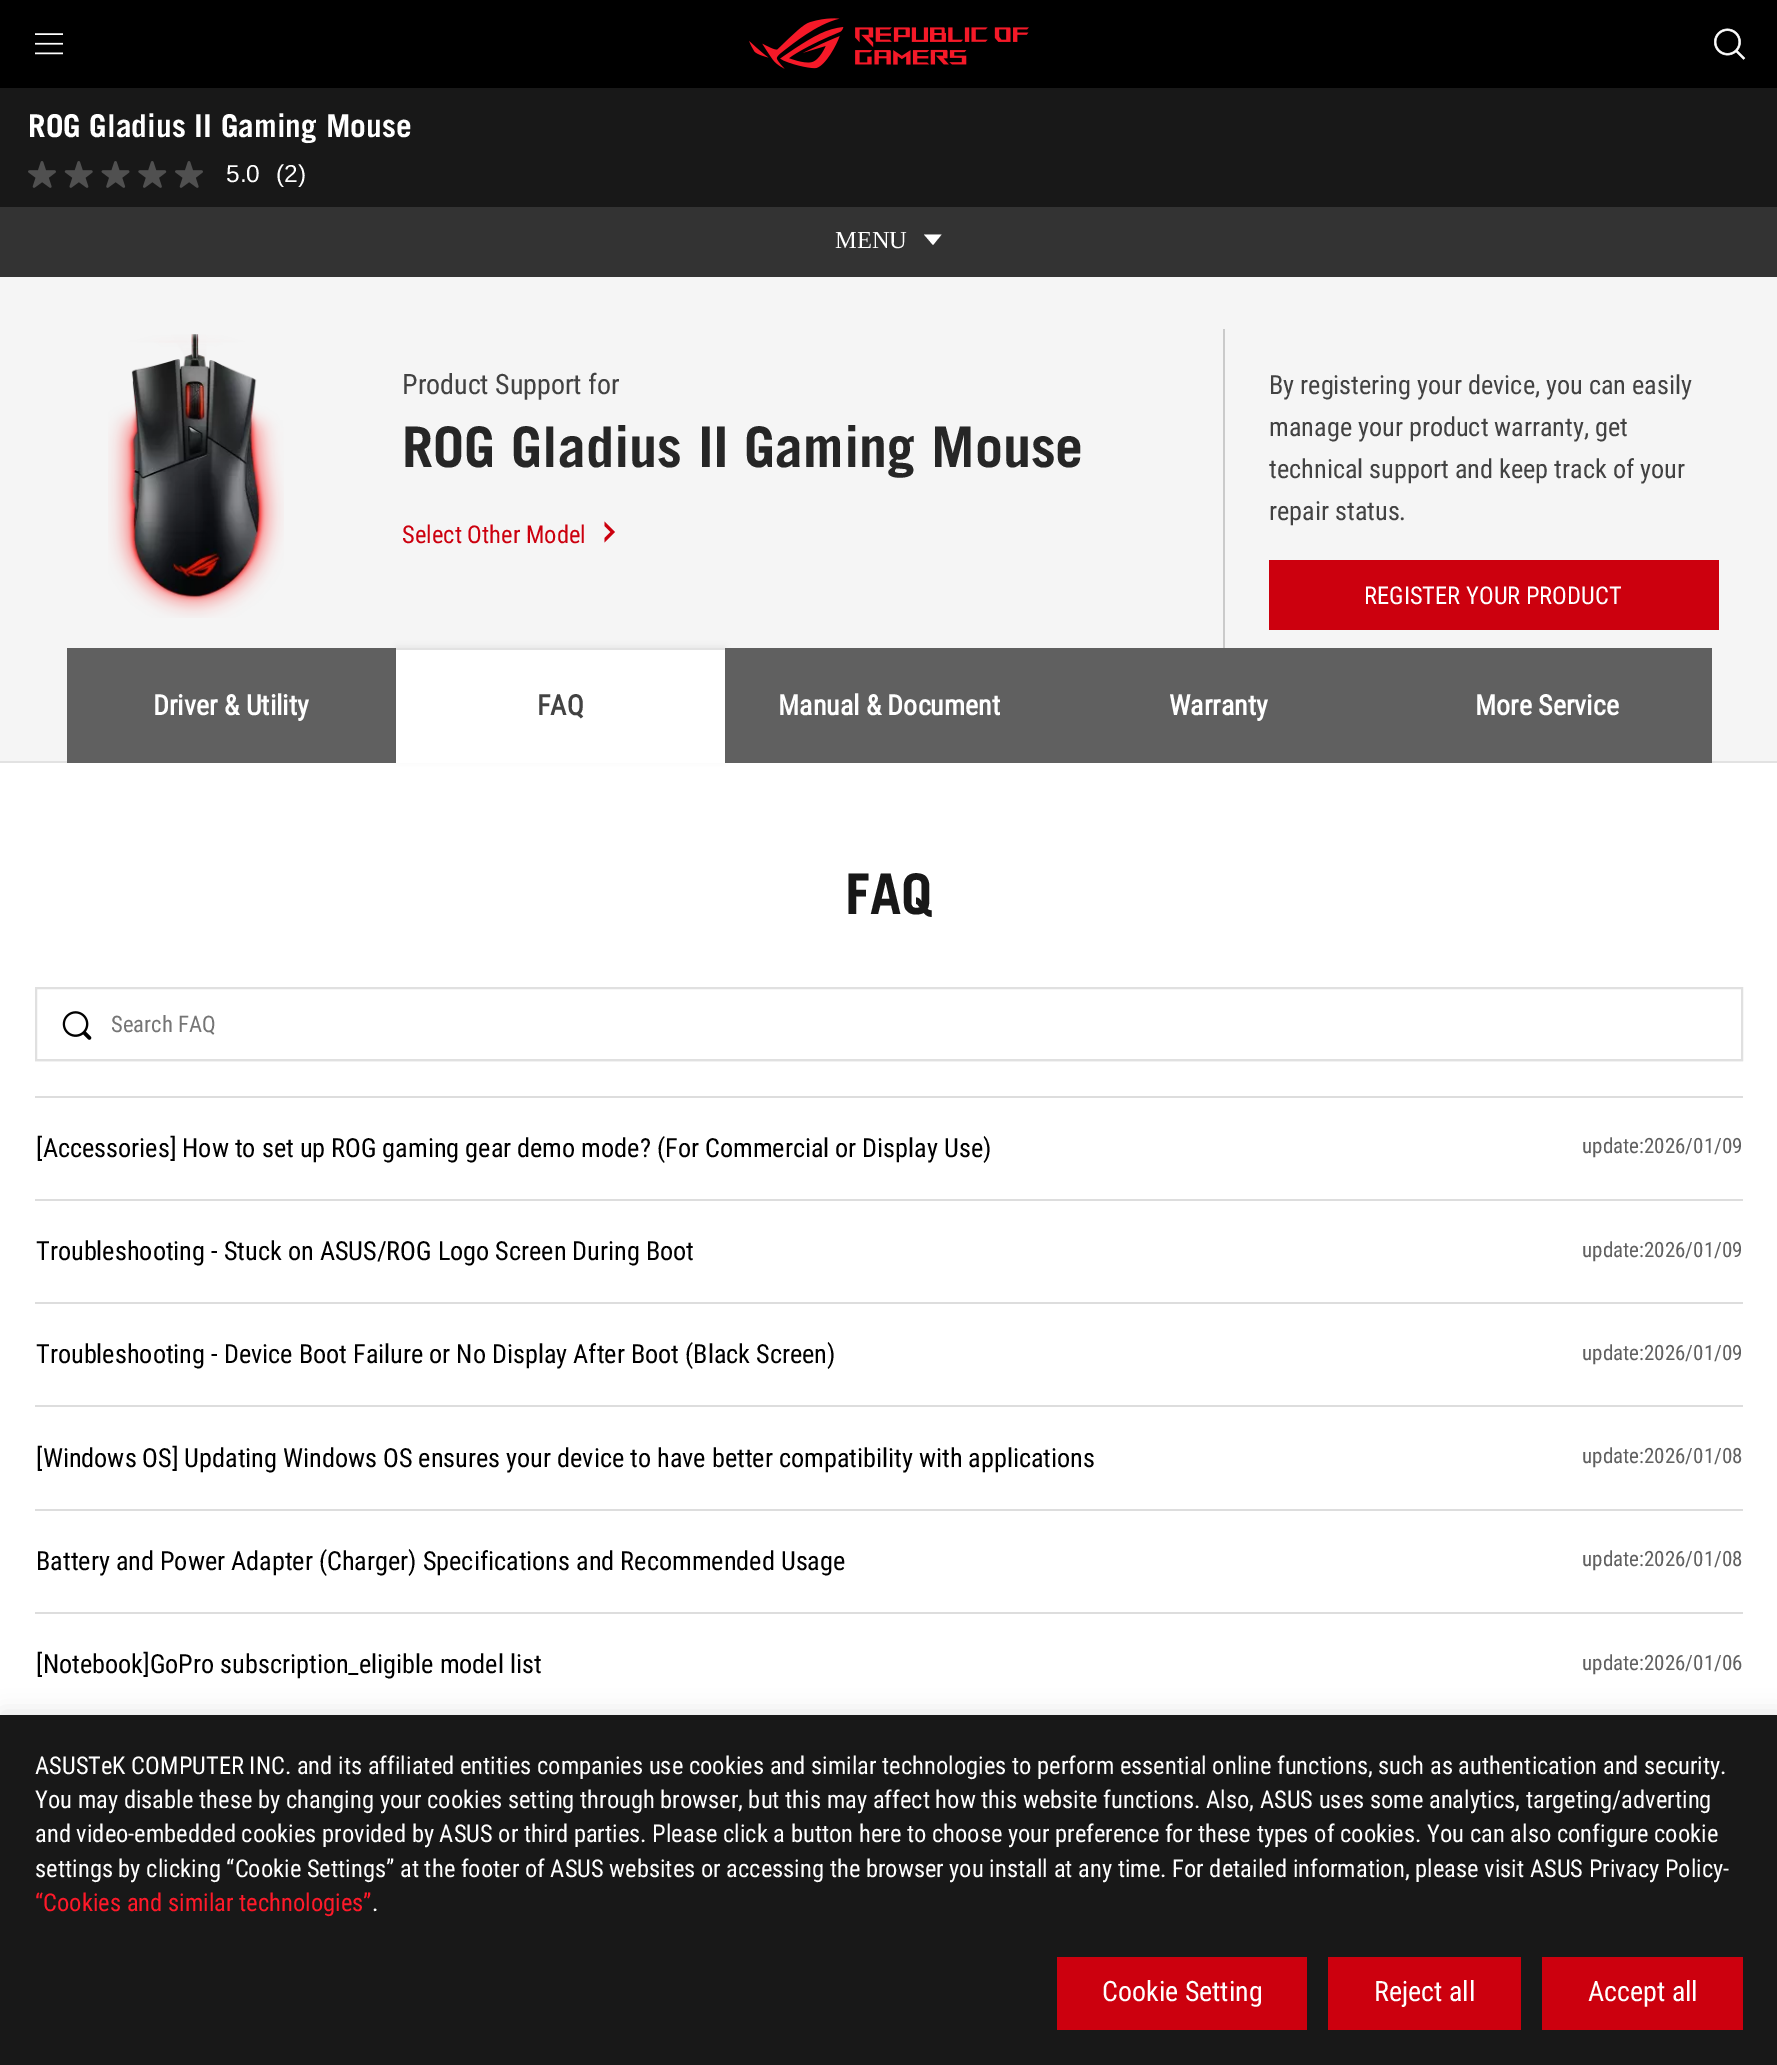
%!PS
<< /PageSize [1777 2065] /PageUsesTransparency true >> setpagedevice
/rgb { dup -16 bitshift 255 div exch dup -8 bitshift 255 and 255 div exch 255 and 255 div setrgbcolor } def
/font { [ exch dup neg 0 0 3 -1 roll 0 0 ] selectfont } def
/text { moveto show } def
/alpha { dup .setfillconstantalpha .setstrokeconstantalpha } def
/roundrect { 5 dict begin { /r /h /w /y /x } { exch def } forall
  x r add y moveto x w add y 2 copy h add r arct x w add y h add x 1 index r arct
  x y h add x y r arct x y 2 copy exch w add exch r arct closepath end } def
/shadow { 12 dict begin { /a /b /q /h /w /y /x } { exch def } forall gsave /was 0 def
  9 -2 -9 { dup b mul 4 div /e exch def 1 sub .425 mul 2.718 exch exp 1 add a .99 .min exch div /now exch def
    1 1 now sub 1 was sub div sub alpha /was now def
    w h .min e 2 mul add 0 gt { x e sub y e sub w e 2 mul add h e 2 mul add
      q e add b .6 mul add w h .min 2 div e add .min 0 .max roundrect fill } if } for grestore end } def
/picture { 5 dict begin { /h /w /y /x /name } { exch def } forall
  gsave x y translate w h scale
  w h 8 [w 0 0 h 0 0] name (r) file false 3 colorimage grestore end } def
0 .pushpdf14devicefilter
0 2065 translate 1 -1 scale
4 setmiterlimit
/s1 { /TradeGothic-Bold 31.5 font 16#FFFFFF rgb } def
/s2 { /LiberationSans-Regular 24.5 font 16#FFFFFF rgb } def
/s3 { /LiberationSerif-Regular 24.5 font 16#FFFFFF rgb } def
/s4 { /RobotoCondensed-Regular 28 font 16#424242 rgb } def
/s5 { /TradeGothic-Bold 56 font 16#262626 rgb } def
/s6 { /RobotoCondensed-Regular 24.5 font 16#CC000E rgb } def
/s7 { /RobotoCondensed-Regular 26.25 font 16#424242 rgb } def
/s8 { /RobotoCondensed-Regular 24.5 font 16#FFFFFF rgb } def
/s9 { /RobotoCondensed-Bold 28 font 16#FFFFFF rgb } def
/s10 { /RobotoCondensed-Bold 28 font 16#424242 rgb } def
/s11 { /TradeGothic-Bold 56 font 16#181818 rgb } def
/s12 { /RobotoCondensed-Regular 22.75 font 16#757575 rgb } def
/s13 { /RobotoCondensed-Regular 26.25 font 16#000000 rgb } def
/s14 { /RobotoCondensed-Regular 21 font 16#606060 rgb } def
/s15 { /RobotoCondensed-Regular 24.5 font 16#FF1929 rgb } def
/s16 { /RobotoCondensed-Regular 28 font 16#FFFFFF rgb } def
16#FFFFFF rgb
0 0 1777 2065 rectfill
16#000000 rgb
0 0 1777 88 rectfill
(pic1.raw) 35 33 28 22 picture
(pic2.raw) 749 18 280 51 picture
(pic3.raw) 1714 28 32 32 picture
16#181818 rgb
0 88 1777 119 rectfill
s1
(ROG Gladius II Gaming Mouse) 28 137 text
(pic4.raw) 28 161 28 27 picture
(pic5.raw) 64 161 29 27 picture
(pic6.raw) 101 161 29 27 picture
(pic7.raw) 138 161 29 27 picture
(pic4.raw) 175 161 28 27 picture
s2
(5.0) 226 182 text
(\(2\)) 276 182 text
16#333333 rgb
0 207 1777 70 rectfill
s3
(MENU) 835 248 text
924 234.5 moveto 933 245 lineto 941.5 234.5 lineto closepath fill
16#F5F5F5 rgb
0 277 1777 484 rectfill
(pic8.raw) 108 334 176 284 picture
s4
(Product Support for) 402 394 text
s5
(ROG Gladius II Gaming Mouse) 402 467 text
s6
(Select Other Model) 402 543 text
613.5 530.5 moveto 604.5 521.5 lineto 604.5 526 lineto 610.5 532 lineto 604.5 538 lineto 604.5 542.5 lineto 615 532 lineto closepath fill
16#CACACA rgb
1223 329 2 319 rectfill
s7
(By registering your device, you can easily) 1269 394 text
(manage your product warranty, get) 1269 436 text
(technical support and keep track of your) 1269 478 text
(repair status.) 1269 520 text
16#CC000E rgb
1269 560 450 70 rectfill
s8
(REGISTER YOUR PRODUCT) 1364 604 text
16#E2E2E2 rgb
0 761 1777 2 rectfill
16#606060 rgb
67 648 329 115 rectfill
s9
(Driver & Utility) 153 715 text
16#000000 rgb
396 646 329 115 0 3.5 0.05 shadow
16#FFFFFF rgb
396 650 329 113 rectfill
16#E2E2E2 rgb
396 648 329 2 rectfill
s10
(FAQ) 537 715 text
16#606060 rgb
725 648 987 115 rectfill
s9
(Manual & Document) 778 715 text
(Warranty) 1169 715 text
(More Service) 1475 715 text
s11
(FAQ) 845 914 text
16#E0E0E0 rgb
2 setlinewidth
36 988 1706 72 rectstroke
(pic9.raw) 62 1011 30 29 picture
16#F2F2F2 rgb
35 1061 1708 1 rectfill
s12
(Search FAQ) 111 1032 text
16#DDDDDD rgb
35 1096 1708 2 rectfill
35 1199 1708 2 rectfill
s13
([Accessories] How to set up ROG gaming gear demo mode? \(For Commercial or Display Use\)) 36 1157 text
s14
(update:2026/01/09) 1582 1153 text
16#DDDDDD rgb
35 1302 1708 2 rectfill
s13
(Troubleshooting - Stuck on ASUS/ROG Logo Screen During Boot) 36 1260 text
s14
(update:2026/01/09) 1582 1257 text
16#DDDDDD rgb
35 1405 1708 2 rectfill
s13
(Troubleshooting - Device Boot Failure or No Display After Boot \(Black Screen\)) 36 1363 text
s14
(update:2026/01/09) 1582 1360 text
16#DDDDDD rgb
35 1509 1708 2 rectfill
s13
([Windows OS] Updating Windows OS ensures your device to have better compatibility with applications) 36 1467 text
s14
(update:2026/01/08) 1582 1463 text
16#DDDDDD rgb
35 1612 1708 2 rectfill
s13
(Battery and Power Adapter \(Charger\) Specifications and Recommended Usage) 36 1570 text
s14
(update:2026/01/08) 1582 1566 text
s13
([Notebook]GoPro subscription_eligible model list) 36 1673 text
s14
(update:2026/01/06) 1582 1670 text
16#000000 rgb
2 1712 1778 350 0 10.5 0.1 shadow
16#181818 rgb
0 1715 1777 350 rectfill
s8
(ASUSTeK COMPUTER INC. and its affiliated entities companies use cookies and similar technologies to perform essential online functions, such as authentication and security.) 35 1774 text
(You may disable these by changing your cookies setting through browser, but this may affect how this website functions. Also, ASUS uses some analytics, targeting/adverting) 35 1808 text
(and video-embedded cookies provided by ASUS or third parties. Please click a button here to choose your preference for these types of cookies. You can also configure cookie) 35 1842 text
(settings by clicking “Cookie Settings” at the footer of ASUS websites or accessing the browser you install at any time. For detailed information, please visit ASUS Privacy Policy-) 35 1877 text
s15
(“Cookies and similar technologies”) 35 1911 text
s8
(.) 372 1911 text
16#CC000E rgb
1057 1957 250 73 rectfill
s16
(Cookie Setting) 1102 2001 text
16#CC000E rgb
1328 1957 193 73 rectfill
s16
(Reject all) 1374 2001 text
16#CC000E rgb
1542 1957 201 73 rectfill
s16
(Accept all) 1588 2001 text
.poppdf14devicefilter showpage
